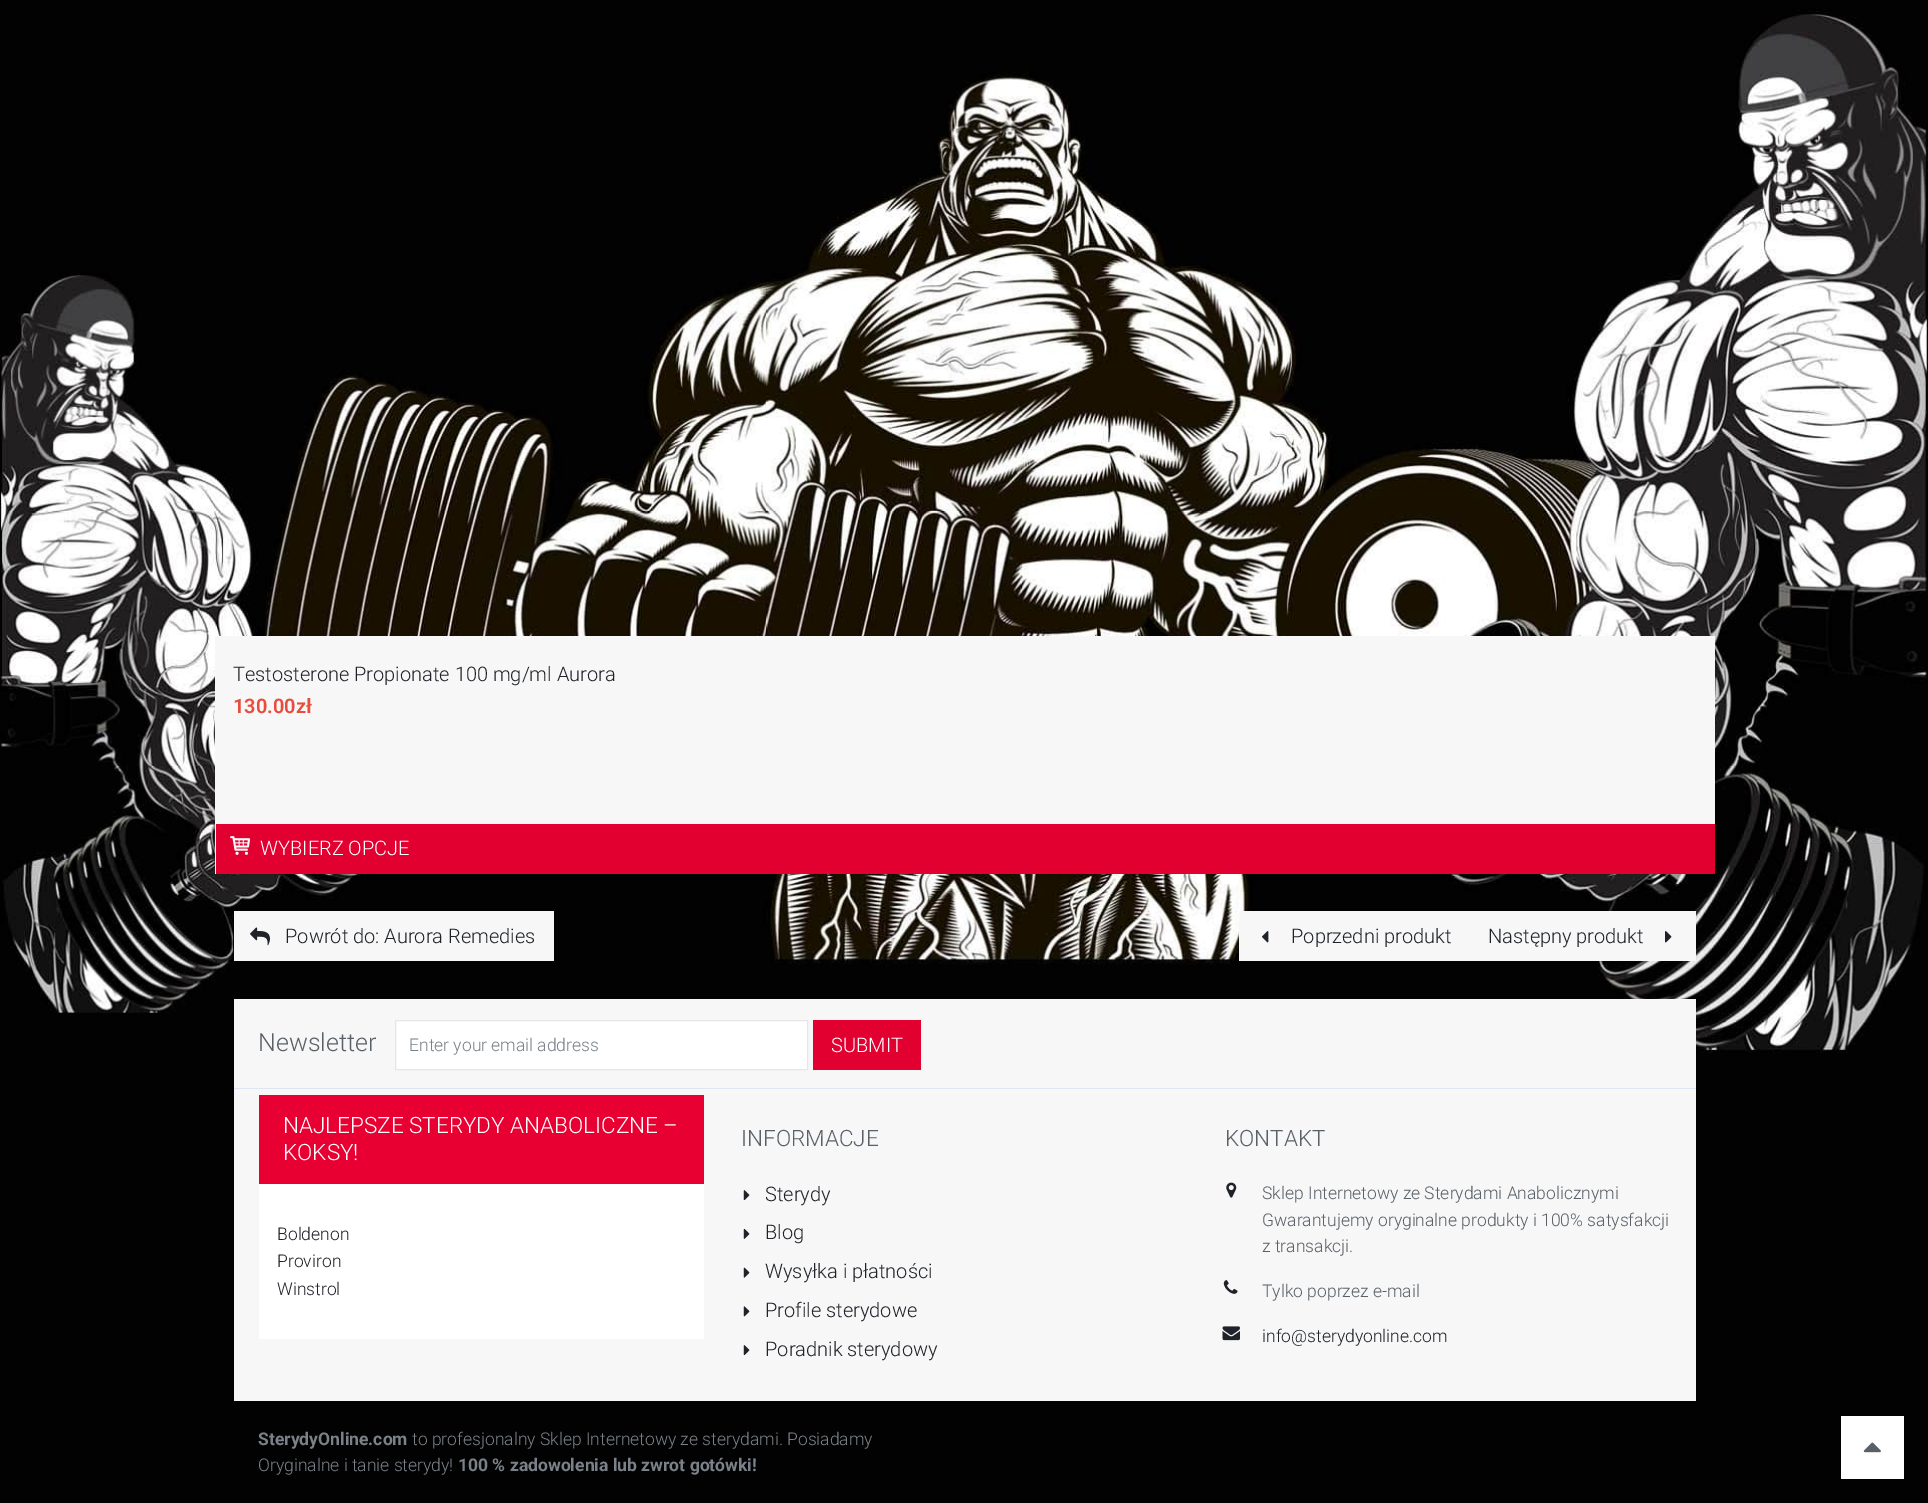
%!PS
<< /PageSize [1928 1503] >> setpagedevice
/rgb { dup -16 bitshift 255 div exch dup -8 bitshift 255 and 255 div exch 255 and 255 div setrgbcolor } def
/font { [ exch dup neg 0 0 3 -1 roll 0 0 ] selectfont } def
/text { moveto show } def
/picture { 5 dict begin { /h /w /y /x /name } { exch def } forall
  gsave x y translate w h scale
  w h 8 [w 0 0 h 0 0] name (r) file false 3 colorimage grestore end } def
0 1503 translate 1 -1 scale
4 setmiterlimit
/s1 { /Roboto-Light 20 font 16#1F2228 rgb } def
/s2 { /Roboto-SemiBold 20 font 16#E74C3C rgb } def
/s3 { /Roboto-Light 20 font 16#FFFFFF rgb } def
/s4 { /Roboto-Light 25 font 16#596067 rgb } def
/s5 { /Roboto-Light 17.5 font 16#7A8188 rgb } def
/s6 { /Roboto-Light 22.5 font 16#FFFFFF rgb } def
/s7 { /Roboto-Light 17.5 font 16#1F2228 rgb } def
/s8 { /Roboto-Light 22.5 font 16#596067 rgb } def
/s9 { /Roboto-Light 17.5 font 16#596067 rgb } def
/s10 { /Roboto-Bold 17.5 font 16#7A8188 rgb } def
16#FFFFFF rgb
0 0 1928 1503 rectfill
(pic1.raw) 0 0 1928 1503 picture
16#F7F7F7 rgb
215 636 1500 188 rectfill
s1
(Testosterone Propionate 100 mg/ml Aurora) 233 681 text
s2
(130.00zł) 233 713 text
16#E10030 rgb
216 824 1499 50 rectfill
16#E7F9FC rgb
215 824 1 50 rectfill
(pic2.raw) 230 836 21 19 picture
s3
(WYBIERZ OPCJE) 260 855 text
16#F7F7F7 rgb
234 911 320 50 rectfill
(pic3.raw) 250 927 20 19 picture
s1
(Powrót do: Aurora Remedies) 285 943 text
16#F7F7F7 rgb
1239 911 457 50 rectfill
(pic4.raw) 1262 931 7 12 picture
s1
(Poprzedni produkt) 1291 943 text
(Następny produkt) 1488 943 text
(pic5.raw) 1665 931 7 12 picture
16#F7F7F7 rgb
234 999 1462 89 rectfill
16#DFE6F3 rgb
234 1088 1462 1 rectfill
s4
(Newsletter) 258 1051 text
16#FFFFFF rgb
395.5 1020.5 moveto 807.5 1020.5 lineto 807.5 1069.5 lineto 395.5 1069.5 lineto closepath gsave fill grestore
16#E6E6E6 rgb
stroke
s5
(Enter your email address) 409 1051 text
16#E20030 rgb
813 1020 108 50 rectfill
s3
(SUBMIT) 831 1052 text
16#F7F7F7 rgb
234 1089 1462 312 rectfill
16#E70031 rgb
259 1095 445 89 rectfill
s6
(NAJLEPSZE STERYDY ANABOLICZNE –) 283 1133 text
(KOKSY!) 283 1160 text
259 1184 445 155 rectfill
s7
(Boldenon) 277 1240 text
(Proviron) 277 1267 text
(Winstrol) 277 1295 text
s8
(INFORMACJE) 741 1146 text
(pic6.raw) 743 1190 7 11 picture
s1
(Sterydy) 765 1201 text
(pic7.raw) 743 1228 7 11 picture
(Blog) 765 1239 text
(pic8.raw) 743 1267 7 11 picture
(Wysyłka i płatności) 765 1278 text
(pic9.raw) 743 1306 7 11 picture
(Profile sterydowe) 765 1317 text
(pic6.raw) 743 1345 7 11 picture
(Poradnik sterydowy) 765 1356 text
s8
(KONTAKT) 1225 1146 text
(pic10.raw) 1226 1182 11 16 picture
s9
(Sklep Internetowy ze Sterydami Anabolicznymi) 1262 1199 text
(Gwarantujemy oryginalne produkty i 100% satysfakcji) 1262 1226 text
(z transakcji.) 1262 1252 text
(pic11.raw) 1223 1280 15 14 picture
(Tylko poprzez e-mail) 1262 1297 text
(pic12.raw) 1222 1326 18 15 picture
s7
(info@sterydyonline.com) 1262 1342 text
s10
(SterydyOnline.com) 258 1445 text
s5
(to profesjonalny Sklep Internetowy ze sterydami. Posiadamy) 412 1445 text
(Oryginalne i tanie sterydy!) 258 1471 text
s10
(100 % zadowolenia lub zwrot gotówki!) 458 1471 text
16#FFFFFF rgb
1841 1416 63 63 rectfill
(pic13.raw) 1863 1442 18 11 picture
showpage
